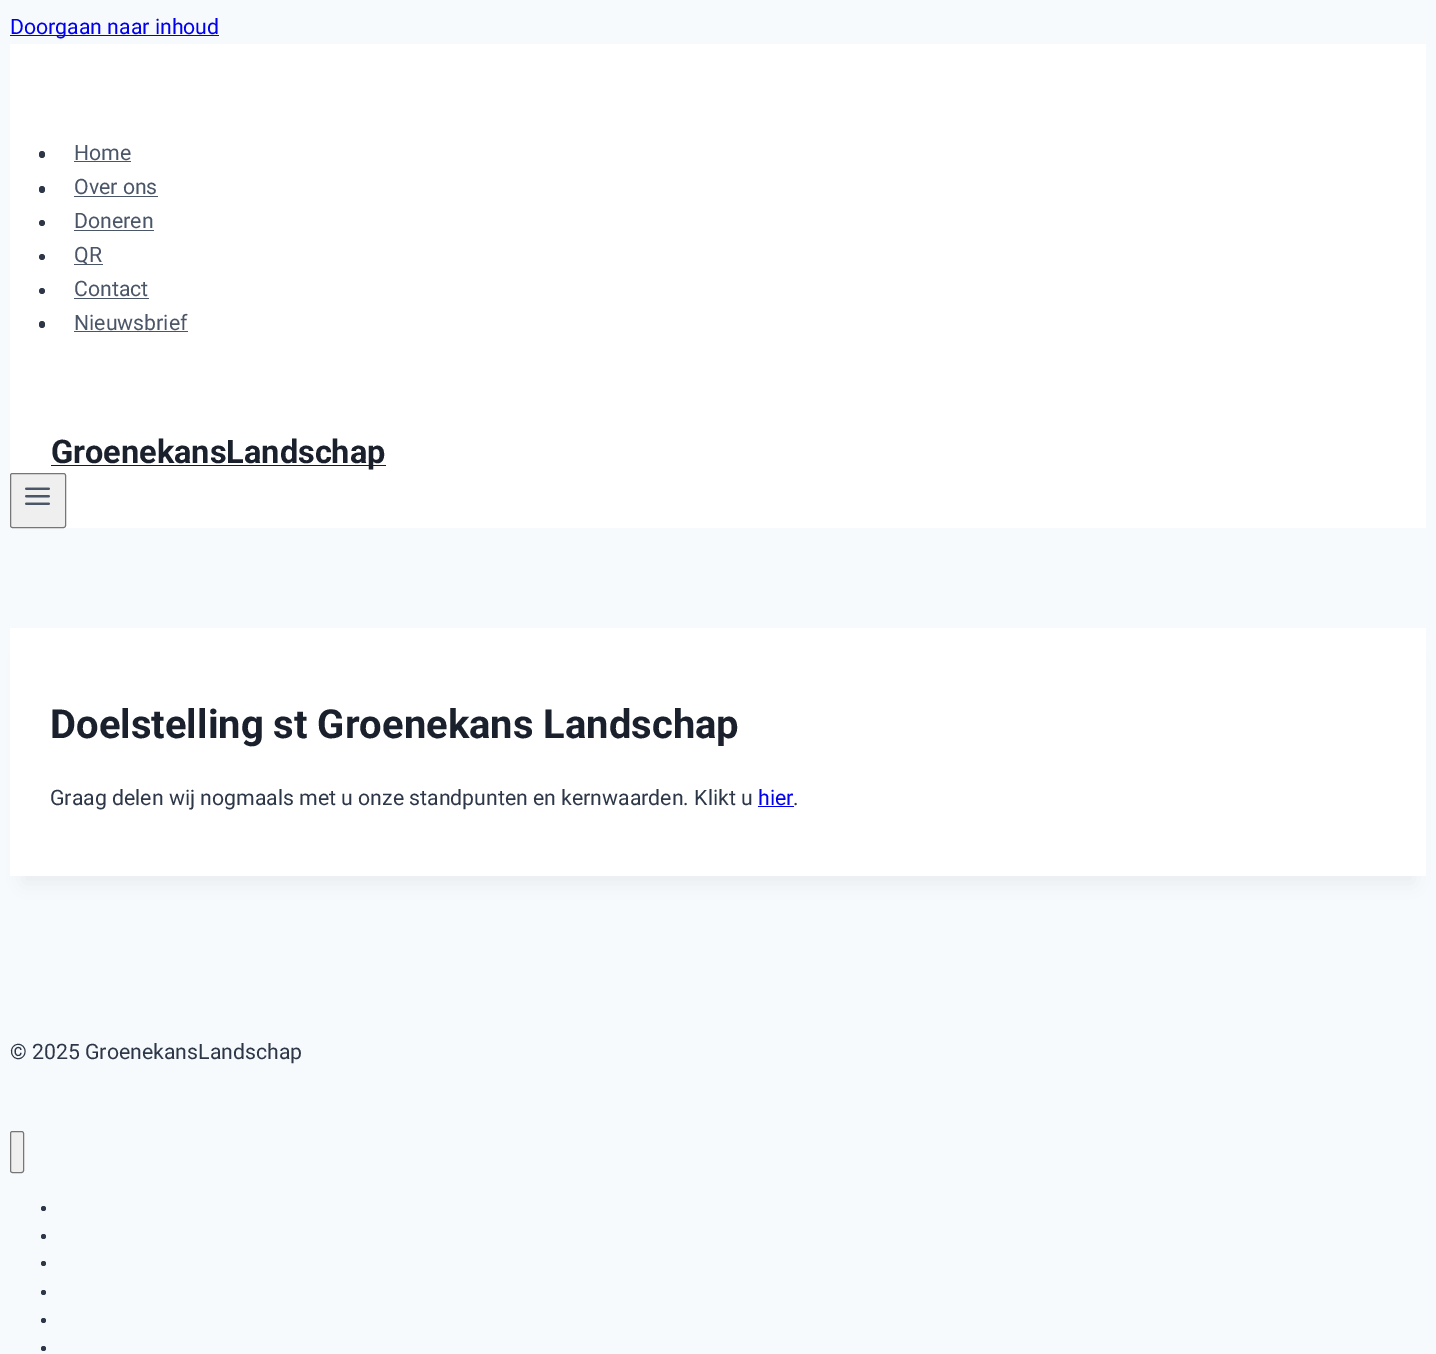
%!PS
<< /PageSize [1436 1354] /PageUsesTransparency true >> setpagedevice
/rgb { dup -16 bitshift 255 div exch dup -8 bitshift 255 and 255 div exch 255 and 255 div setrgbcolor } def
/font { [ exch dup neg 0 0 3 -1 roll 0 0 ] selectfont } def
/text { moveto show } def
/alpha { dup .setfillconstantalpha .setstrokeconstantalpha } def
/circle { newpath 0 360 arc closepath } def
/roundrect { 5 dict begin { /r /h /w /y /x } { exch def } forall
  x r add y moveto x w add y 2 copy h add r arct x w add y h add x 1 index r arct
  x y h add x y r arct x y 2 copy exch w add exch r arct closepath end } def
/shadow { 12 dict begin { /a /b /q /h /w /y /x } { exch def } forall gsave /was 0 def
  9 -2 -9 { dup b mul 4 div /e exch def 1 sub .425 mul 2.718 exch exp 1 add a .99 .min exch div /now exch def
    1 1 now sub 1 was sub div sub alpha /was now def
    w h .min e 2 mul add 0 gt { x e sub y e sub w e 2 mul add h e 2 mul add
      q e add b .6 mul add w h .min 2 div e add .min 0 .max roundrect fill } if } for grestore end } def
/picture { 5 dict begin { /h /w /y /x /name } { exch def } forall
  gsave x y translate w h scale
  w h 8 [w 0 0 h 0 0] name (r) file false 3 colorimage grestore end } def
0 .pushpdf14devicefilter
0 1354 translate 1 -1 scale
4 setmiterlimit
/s1 { /Roboto-Regular 21.25 font 16#0000EE rgb } def
/s2 { /Roboto-Regular 21.25 font 16#4A5568 rgb } def
/s3 { /Roboto-Bold 32.5 font 16#1A202C rgb } def
/s4 { /Roboto-Bold 40 font 16#1A202C rgb } def
/s5 { /Roboto-Regular 21.25 font 16#2D3748 rgb } def
16#F7FAFC rgb
0 0 1436 1354 rectfill
16#0000EE rgb
10 35 209 1 rectfill
s1
(Doorgaan naar inhoud) 10 34 text
16#FFFFFF rgb
10 44 1416 484 rectfill
16#2D3748 rgb
39 151 6 7 3 roundrect fill
s2
(Home) 74 160 text
74 161 57 1 rectfill
16#2D3748 rgb
39 186 6 7 3 roundrect fill
s2
(Over ons) 74 194 text
74 196 84 1 rectfill
16#2D3748 rgb
42 223 3 circle fill
s2
(Doneren) 74 228 text
74 230 80 1 rectfill
16#2D3748 rgb
42 257 3 circle fill
16#4A5568 rgb
74 264 29 1 rectfill
(QR) 74 262 text
16#2D3748 rgb
42 291 3 circle fill
s2
(Contact) 74 296 text
74 298 75 1 rectfill
16#2D3748 rgb
39 321 6 7 3 roundrect fill
s2
(Nieuwsbrief) 74 330 text
74 331 114 1 rectfill
16#0000EE rgb
51 465 335 1 rectfill
s3
(GroenekansLandschap) 51 463 text
16#EFEFEF rgb
10.5 473.5 55 54 2 roundrect gsave fill grestore
16#767676 rgb
stroke
(pic1.raw) 25 487 25 18 picture
16#000000 rgb
23 659 1391 224 0 9.5 0.05 shadow
16#FFFFFF rgb
10 628 1416 248 rectfill
s4
(Doelstelling st Groenekans Landschap) 50 738 text
s5
(Graag delen wij nogmaals met u onze standpunten en kernwaarden. Klikt u) 50 805 text
s1
(hier) 758 805 text
758 806 36 1 rectfill
s5
(.) 793 805 text
(© 2025 GroenekansLandschap) 10 1059 text
16#EFEFEF rgb
10.5 1131.5 13 41 2 roundrect gsave fill grestore
16#767676 rgb
stroke
16#2D3748 rgb
43.5 1208.5 2.5 circle fill
43.5 1236.5 2.5 circle fill
43.5 1263.5 2.5 circle fill
43.5 1292.5 2.5 circle fill
43.5 1320.5 2.5 circle fill
43.5 1348.5 2.5 circle fill
.poppdf14devicefilter showpage
